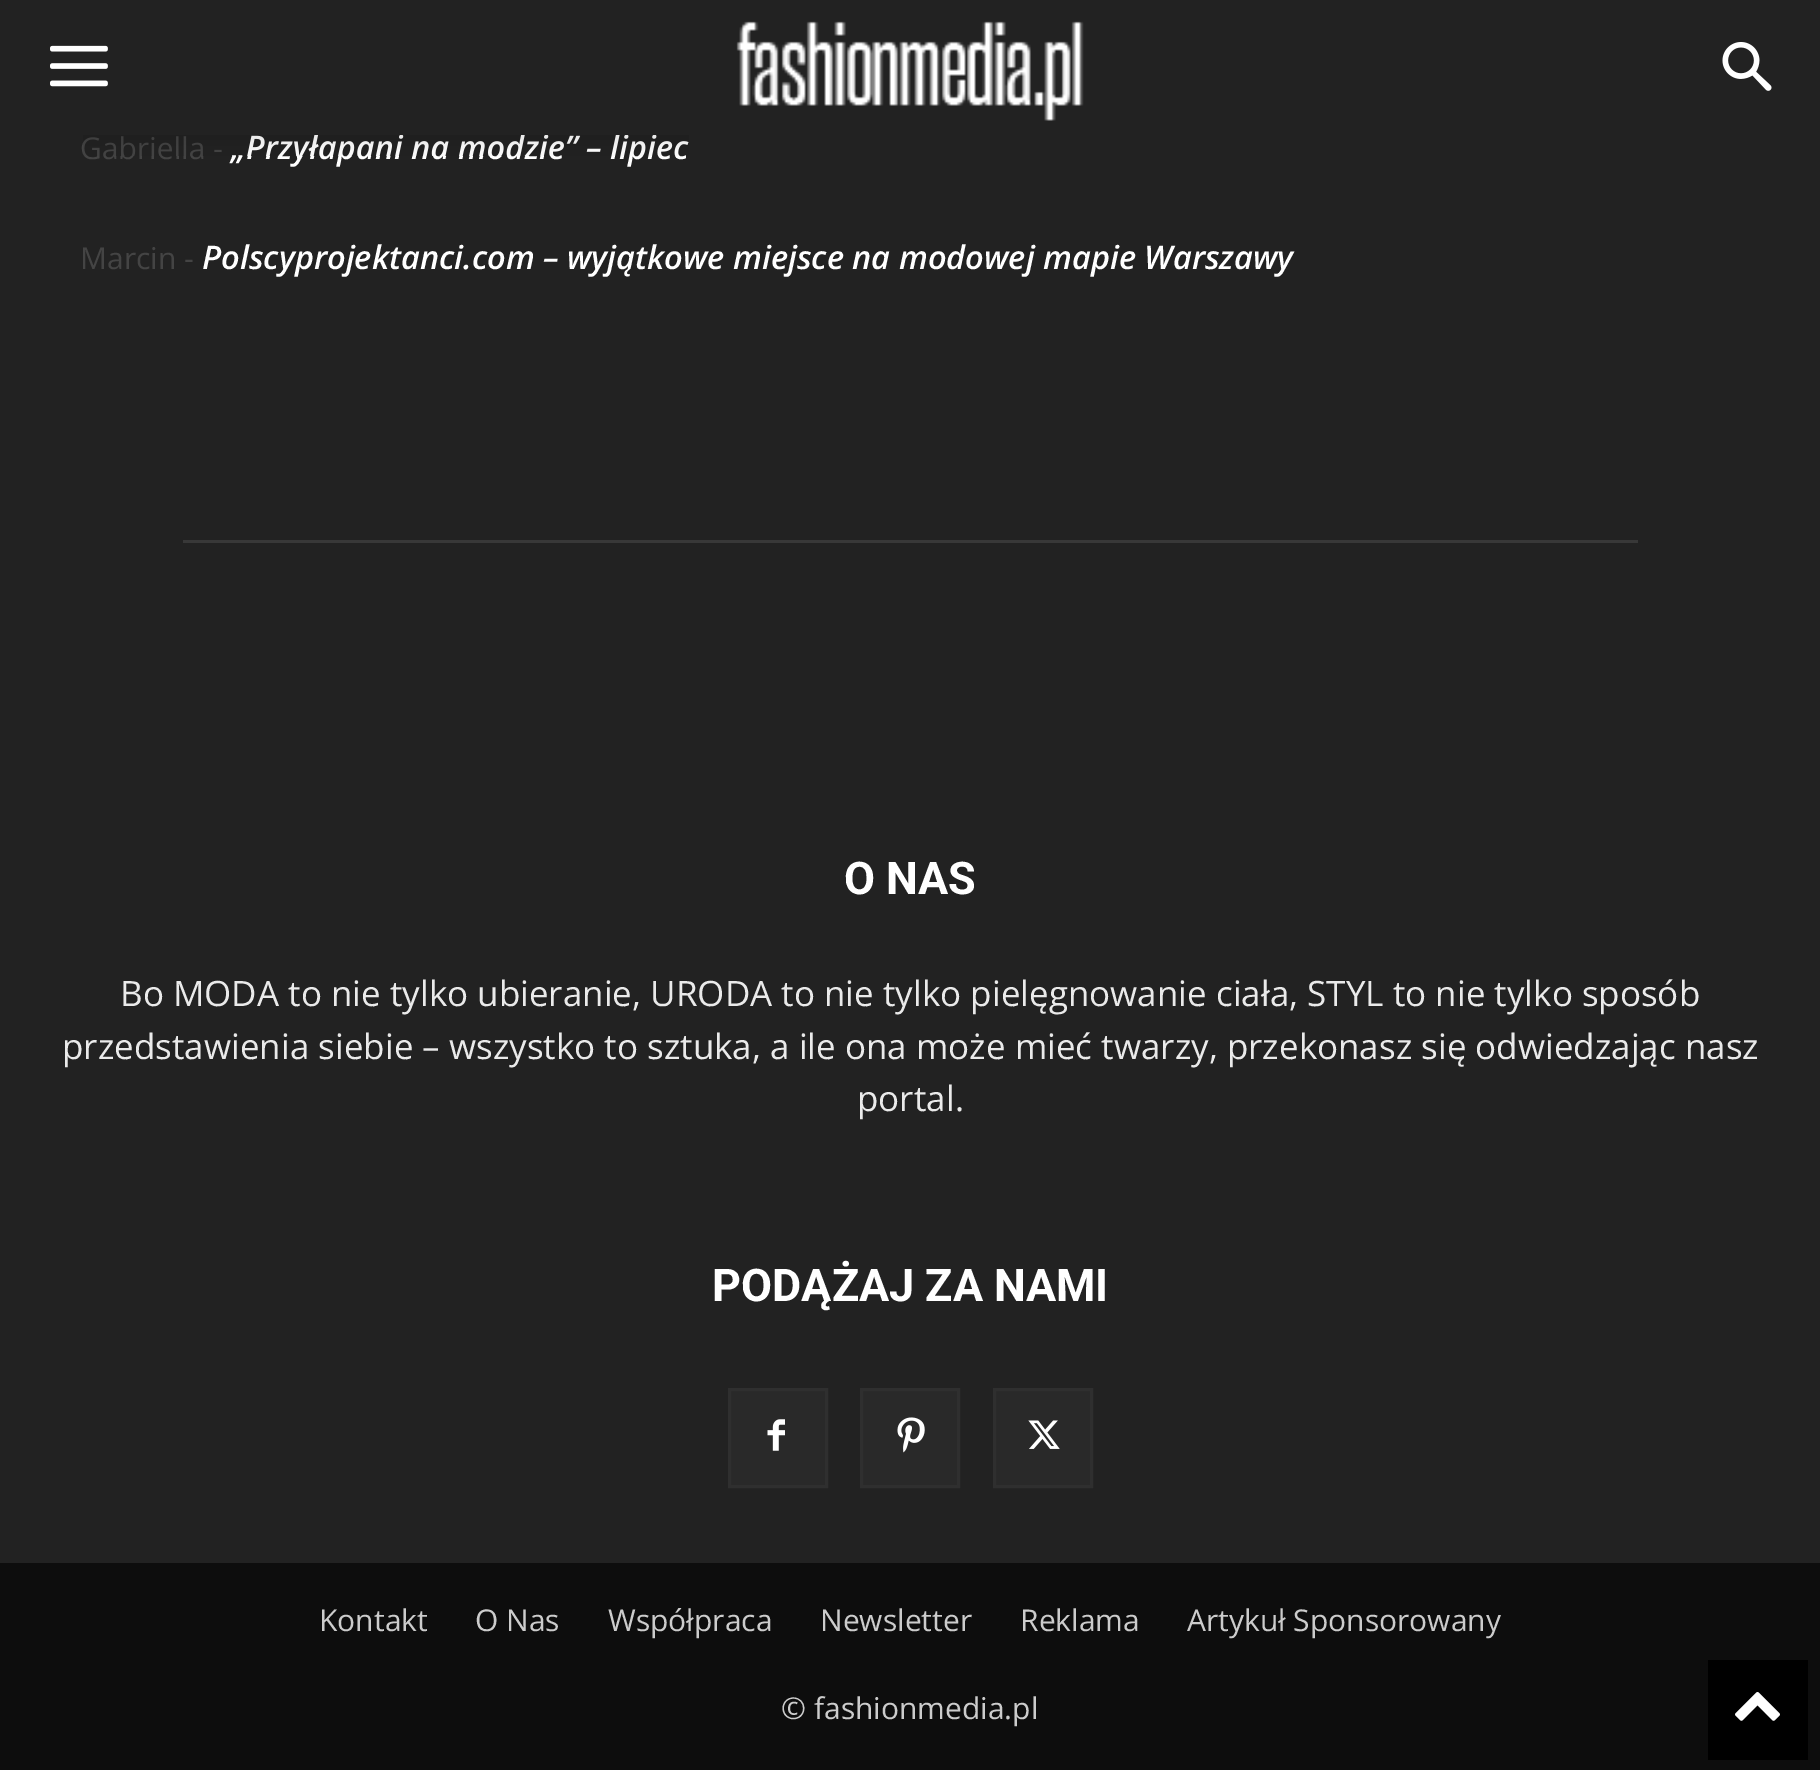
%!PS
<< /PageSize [1820 1770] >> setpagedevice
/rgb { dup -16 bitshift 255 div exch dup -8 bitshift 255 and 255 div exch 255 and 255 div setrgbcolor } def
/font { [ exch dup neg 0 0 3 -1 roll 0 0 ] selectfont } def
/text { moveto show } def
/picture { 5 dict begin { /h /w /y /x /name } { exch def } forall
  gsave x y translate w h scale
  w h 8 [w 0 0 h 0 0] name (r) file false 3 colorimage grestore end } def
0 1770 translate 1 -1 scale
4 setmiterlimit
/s1 { /OpenSans-SemiBoldItalic 32.5 font 16#FFFFFF rgb } def
/s2 { /OpenSans-Regular 30 font 16#444444 rgb } def
/s3 { /Roboto-Bold 45 font 16#FFFFFF rgb } def
/s4 { /OpenSans-Regular 35 font 16#EAEAEA rgb } def
/s5 { /OpenSans-Regular 30 font 16#CCCCCC rgb } def
16#0D0D0D rgb
0 0 1820 1770 rectfill
16#222222 rgb
0 135 1820 1428 rectfill
s1
(„Przyłapani na modzie” – lipiec) 231 159 text
16#222222 rgb
0 0 1820 135 rectfill
(pic1.raw) 50 45 58 42 picture
(pic2.raw) 736 21 348 100 picture
(pic3.raw) 1722 42 50 49 picture
s2
(Gabriella -) 80 159 text
(pic4.raw) 83 135 606 21 picture
(Marcin -) 80 269 text
s1
(Polscyprojektanci.com – wyjątkowe miejsce na modowej mapie Warszawy) 202 269 text
16#383838 rgb
183 540 1455 3 rectfill
s3
(O NAS) 844 894 text
s4
(Bo MODA to nie tylko ubieranie, URODA to nie tylko pielęgnowanie ciała, STYL to nie tylko sposób) 120 1006 text
(przedstawienia siebie – wszystko to sztuka, a ile ona może mieć twarzy, przekonasz się odwiedzając nasz) 62 1059 text
(portal.) 857 1111 text
s3
(PODĄŻAJ ZA NAMI) 712 1301 text
16#292929 rgb
731 1391 94 94 rectfill
(pic5.raw) 767 1419 18 32 picture
16#2F2F2F rgb
3 setlinewidth
729.5 1389.5 97 97 rectstroke
16#292929 rgb
863 1391 94 94 rectfill
(pic6.raw) 897 1417 28 36 picture
16#2F2F2F rgb
861.5 1389.5 97 97 rectstroke
16#292929 rgb
996 1391 94 94 rectfill
(pic7.raw) 1028 1420 32 29 picture
16#2F2F2F rgb
994.5 1389.5 97 97 rectstroke
s5
(Kontakt) 319 1631 text
(O Nas) 475 1631 text
(Współpraca) 608 1631 text
(Newsletter) 820 1631 text
(Reklama) 1020 1631 text
(Artykuł Sponsorowany) 1187 1631 text
(© fashionmedia.pl) 781 1719 text
16#000000 rgb
1708 1660 100 100 rectfill
(pic8.raw) 1735 1692 45 29 picture
showpage
